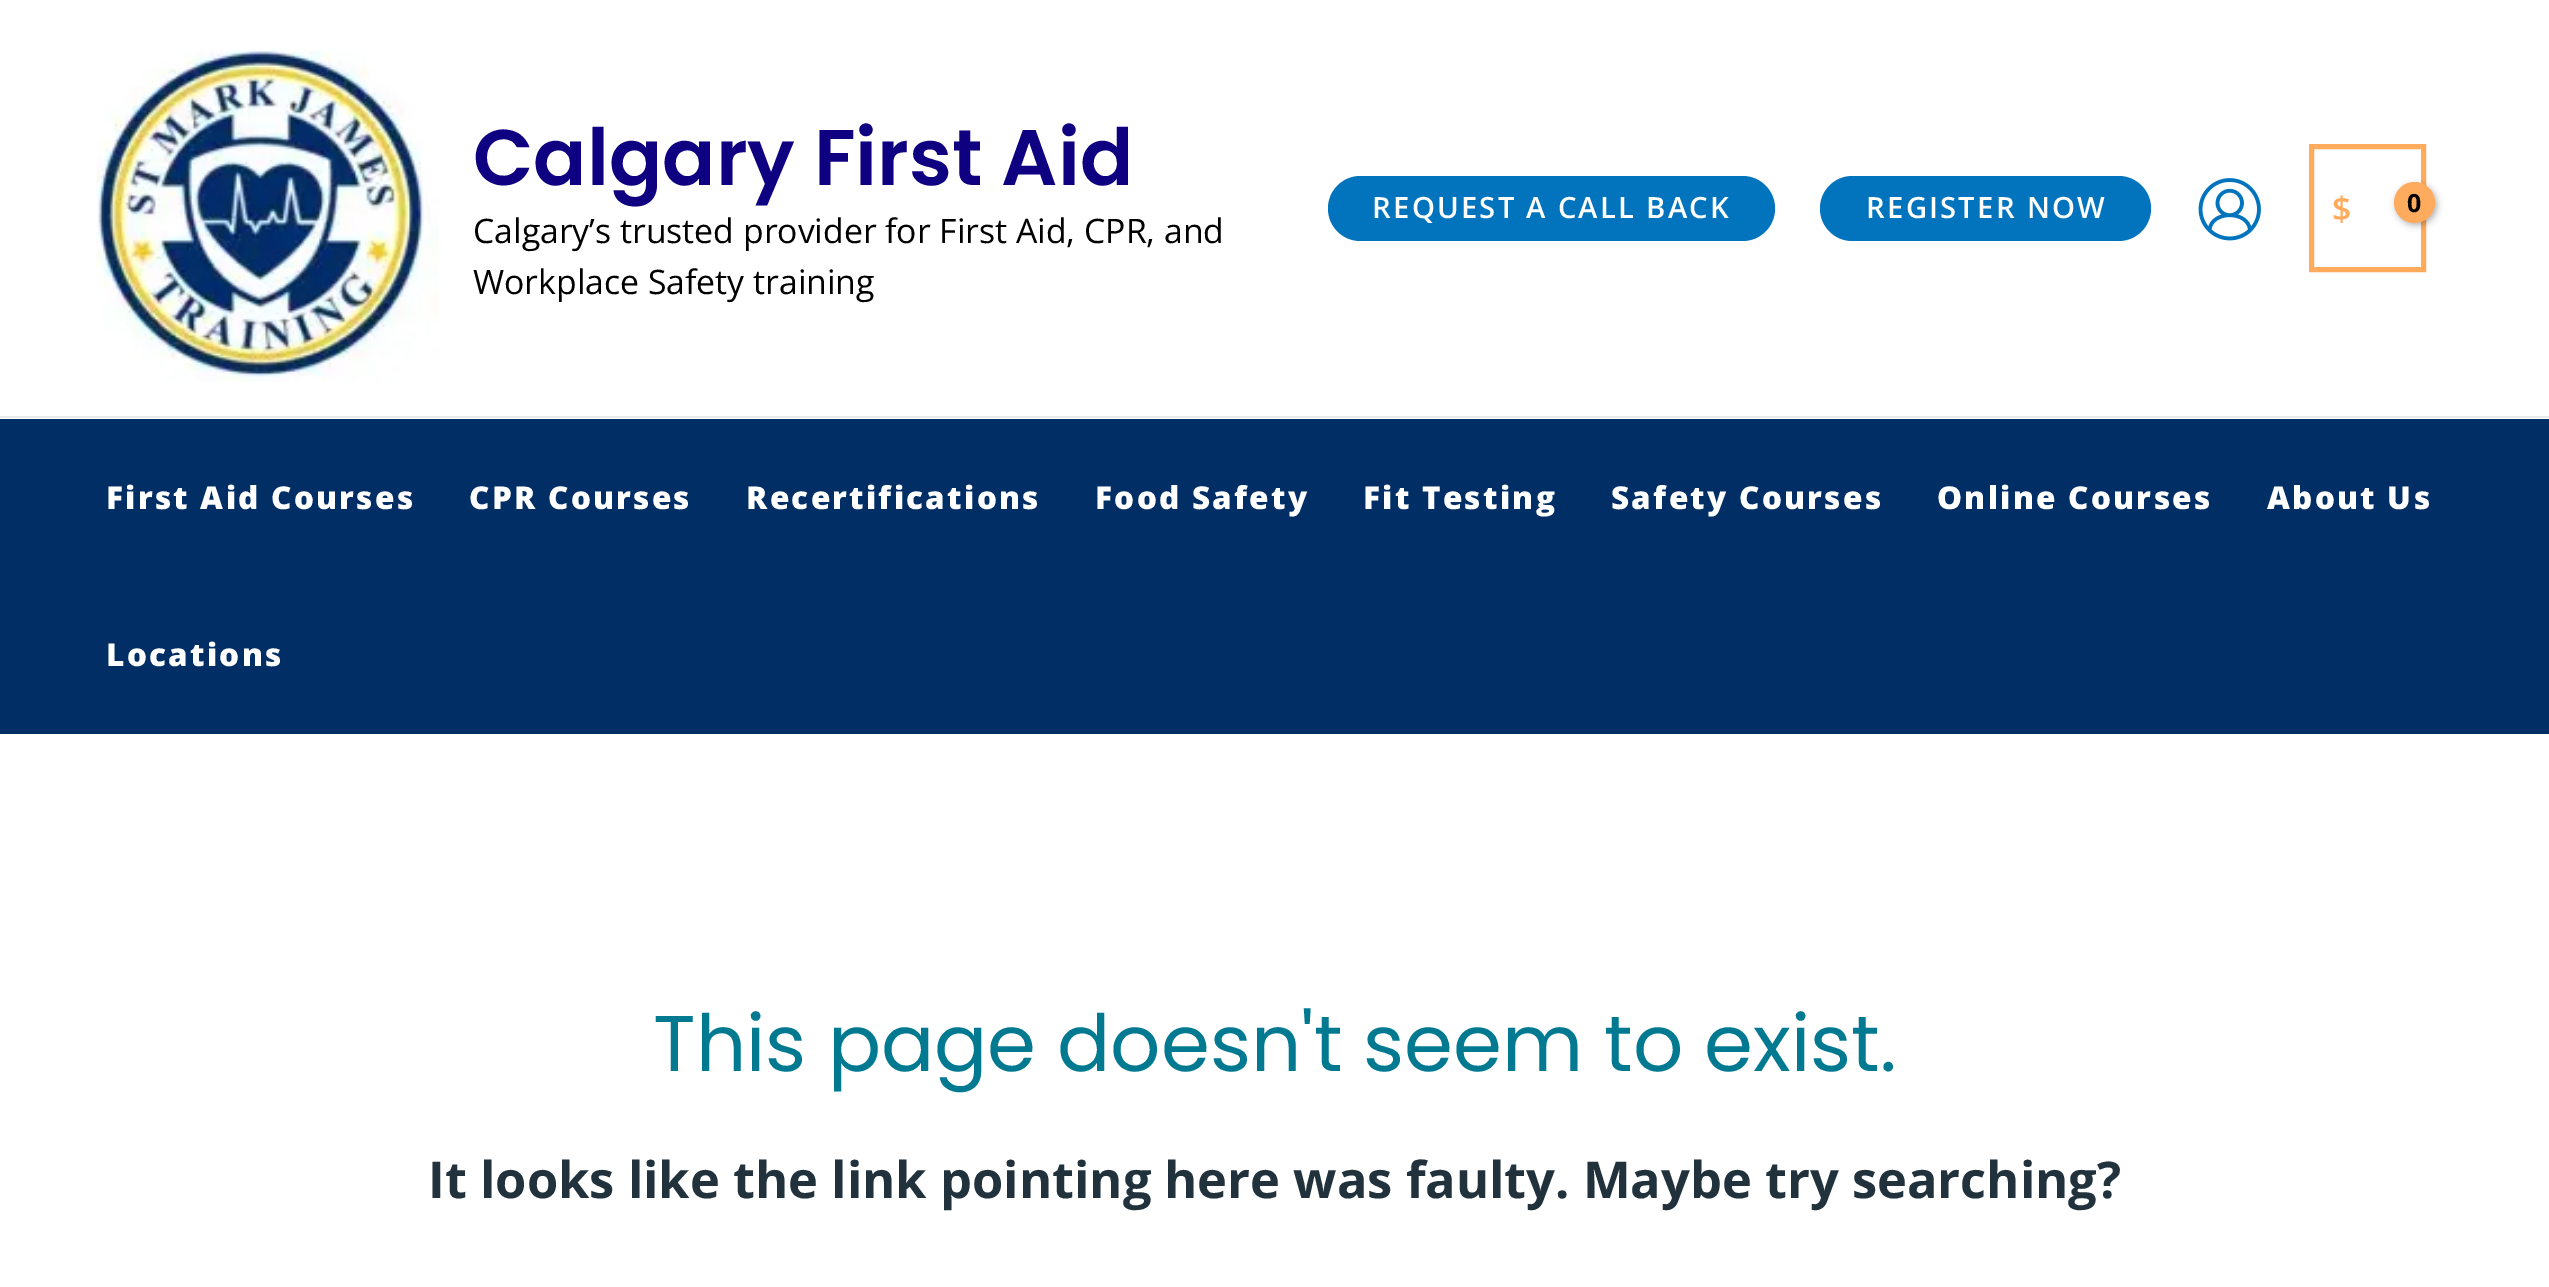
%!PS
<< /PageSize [2549 1287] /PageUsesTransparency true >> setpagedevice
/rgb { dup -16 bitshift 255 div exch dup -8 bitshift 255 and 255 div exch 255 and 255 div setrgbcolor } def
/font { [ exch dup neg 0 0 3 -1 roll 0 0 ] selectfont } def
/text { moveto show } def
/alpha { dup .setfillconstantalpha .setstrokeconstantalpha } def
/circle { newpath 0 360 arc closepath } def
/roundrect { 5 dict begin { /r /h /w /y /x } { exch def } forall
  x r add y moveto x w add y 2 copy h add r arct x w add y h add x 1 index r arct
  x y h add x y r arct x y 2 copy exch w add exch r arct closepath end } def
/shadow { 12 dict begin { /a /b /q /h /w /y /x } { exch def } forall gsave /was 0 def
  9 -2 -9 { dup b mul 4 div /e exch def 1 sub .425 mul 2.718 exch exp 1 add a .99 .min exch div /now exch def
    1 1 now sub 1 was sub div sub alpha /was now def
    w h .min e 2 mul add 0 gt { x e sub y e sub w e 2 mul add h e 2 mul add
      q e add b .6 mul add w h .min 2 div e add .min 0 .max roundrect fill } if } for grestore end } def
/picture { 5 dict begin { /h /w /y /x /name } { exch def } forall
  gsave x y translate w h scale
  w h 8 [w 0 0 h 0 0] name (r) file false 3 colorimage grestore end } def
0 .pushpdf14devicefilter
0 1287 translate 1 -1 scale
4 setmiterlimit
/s1 { /Poppins-SemiBold 78.75 font 16#0E0080 rgb } def
/s2 { /OpenSans-Regular 33.75 font 16#000000 rgb } def
/s3 { /OpenSans-SemiBold 33.75 font 16#FFAB5E rgb } def
/s4 { /Poppins-Regular 78.75 font 16#007991 rgb } def
/s5 { /OpenSans-Bold 50.6 font 16#22323D rgb } def
16#FFFFFF rgb
0 0 2549 1287 rectfill
16#EAEAEA rgb
0 416 2549 2 rectfill
(pic1.raw) 96 49 343 333 picture
s1
(Calgary First Aid) 473 185 text
s2
(Calgary’s trusted provider for First Aid, CPR, and) 473 243 text
(Workplace Safety training) 473 294 text
16#0274BE rgb
1328 176 447 65 32.5 roundrect fill
/OpenSans-SemiBold 29.25 font
16#FFFFFF rgb
1372 218 moveto 2.25 0 (REQUEST A CALL BACK) ashow
16#0274BE rgb
1820 176 331 65 32.5 roundrect fill
16#FFFFFF rgb
1866 218 moveto 2.25 0 (REGISTER NOW) ashow
(pic2.raw) 2198 178 63 63 picture
16#FFAB5E rgb
5 setlinewidth
2311.5 146.5 112 123 rectstroke
s3
($) 2332 221 text
16#000000 rgb
2396 185 41 40 20 3.5 0.3 shadow
16#FFAB5E rgb
2414.5 202.5 20.5 circle fill
/OpenSans-Bold 25 font
16#000000 rgb
2407 212 moveto -1 0 (0) ashow
16#012E65 rgb
0 419 2549 315 rectfill
/OpenSans-ExtraBold 31.5 font
16#FFFFFF rgb
106 509 moveto 2.25 0 (First Aid Courses) ashow
469 509 moveto 2.25 0 (CPR Courses) ashow
746 509 moveto 2.25 0 (Recertifications) ashow
1095 509 moveto 2.25 0 (Food Safety) ashow
1363 509 moveto 2.25 0 (Fit Testing) ashow
1611 509 moveto 2.25 0 (Safety Courses) ashow
1937 509 moveto 2.25 0 (Online Courses) ashow
2267 509 moveto 2.25 0 (About Us) ashow
106 666 moveto 2.25 0 (Locations) ashow
s4
(This page doesn't seem to exist.) 653 1071 text
s5
(It looks like the link pointing here was faulty. Maybe try searching?) 428 1198 text
.poppdf14devicefilter showpage
